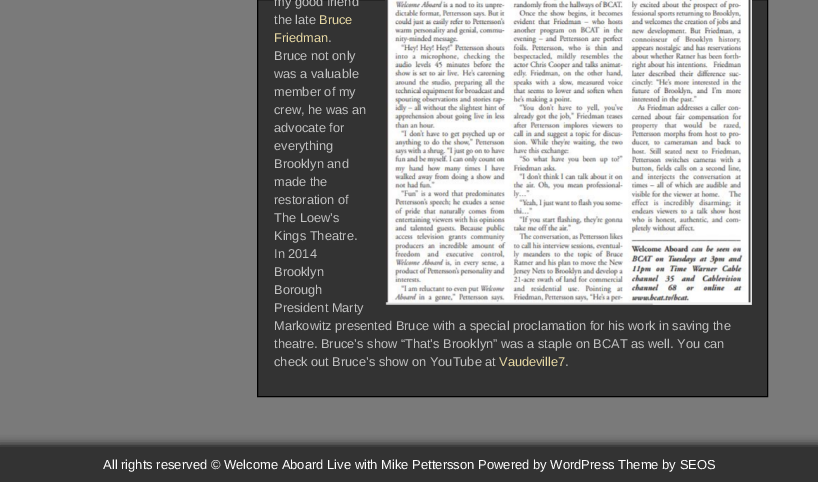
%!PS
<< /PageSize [818 482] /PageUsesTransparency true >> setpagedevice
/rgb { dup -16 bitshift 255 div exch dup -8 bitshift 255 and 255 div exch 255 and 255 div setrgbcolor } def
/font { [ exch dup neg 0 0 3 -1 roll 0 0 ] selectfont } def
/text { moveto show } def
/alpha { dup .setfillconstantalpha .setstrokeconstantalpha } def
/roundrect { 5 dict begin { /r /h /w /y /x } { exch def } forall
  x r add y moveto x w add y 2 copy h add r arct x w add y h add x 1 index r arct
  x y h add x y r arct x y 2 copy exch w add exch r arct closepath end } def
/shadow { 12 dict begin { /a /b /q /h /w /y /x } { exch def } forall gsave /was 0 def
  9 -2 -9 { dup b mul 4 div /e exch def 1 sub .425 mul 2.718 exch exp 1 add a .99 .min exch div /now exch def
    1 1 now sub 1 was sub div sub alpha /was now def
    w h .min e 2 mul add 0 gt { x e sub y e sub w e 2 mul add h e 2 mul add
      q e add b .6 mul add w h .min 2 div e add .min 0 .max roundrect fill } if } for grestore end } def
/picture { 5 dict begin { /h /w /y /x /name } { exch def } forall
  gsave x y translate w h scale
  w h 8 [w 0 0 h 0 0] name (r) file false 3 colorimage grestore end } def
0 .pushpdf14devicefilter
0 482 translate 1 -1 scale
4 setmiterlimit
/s1 { /LiberationSans-Regular 12.8 font 16#C1C1C1 rgb } def
/s2 { /LiberationSans-Regular 12.8 font 16#E7D8A3 rgb } def
/s3 { /LiberationSans-Regular 13 font 16#FFFFFF rgb } def
16#7A7A7A rgb
0 0 818 482 rectfill
16#333333 rgb
257.5 -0.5 moveto 767.5 -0.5 lineto 767.5 396.5 lineto 257.5 396.5 lineto closepath gsave fill grestore
16#000000 rgb
stroke
s1
(my good friend) 274 6 text
(the late) 274 24 text
s2
(Bruce) 319 24 text
(Friedman) 274 42 text
s1
(.) 328 42 text
(Bruce not only) 274 60 text
(was a valuable) 274 78 text
(member of my) 274 96 text
(crew, he was an) 274 114 text
(advocate for) 274 132 text
(everything) 274 150 text
(Brooklyn and) 274 168 text
(made the) 274 186 text
(restoration of) 274 204 text
(The Loew’s) 274 222 text
(Kings Theatre.) 274 240 text
(In 2014) 274 258 text
(Brooklyn) 274 276 text
(Borough) 274 294 text
(President Marty) 274 312 text
(Markowitz presented Bruce with a special proclamation for his work in saving the) 274 330 text
(theatre. Bruce’s show “That’s Brooklyn” was a staple on BCAT as well. You can) 274 348 text
(check out Bruce’s show on YouTube at) 274 366 text
s2
(Vaudeville7) 499 366 text
s1
(.) 565 366 text
(pic1.raw) 385 0 367 305 picture
16#000000 rgb
-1 446 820 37 0 5 1 shadow
16#333333 rgb
0 447 818 35 rectfill
s3
(All rights reserved © Welcome Aboard Live with Mike Pettersson Powered by WordPress Theme by SEOS) 103 469 text
.poppdf14devicefilter showpage
